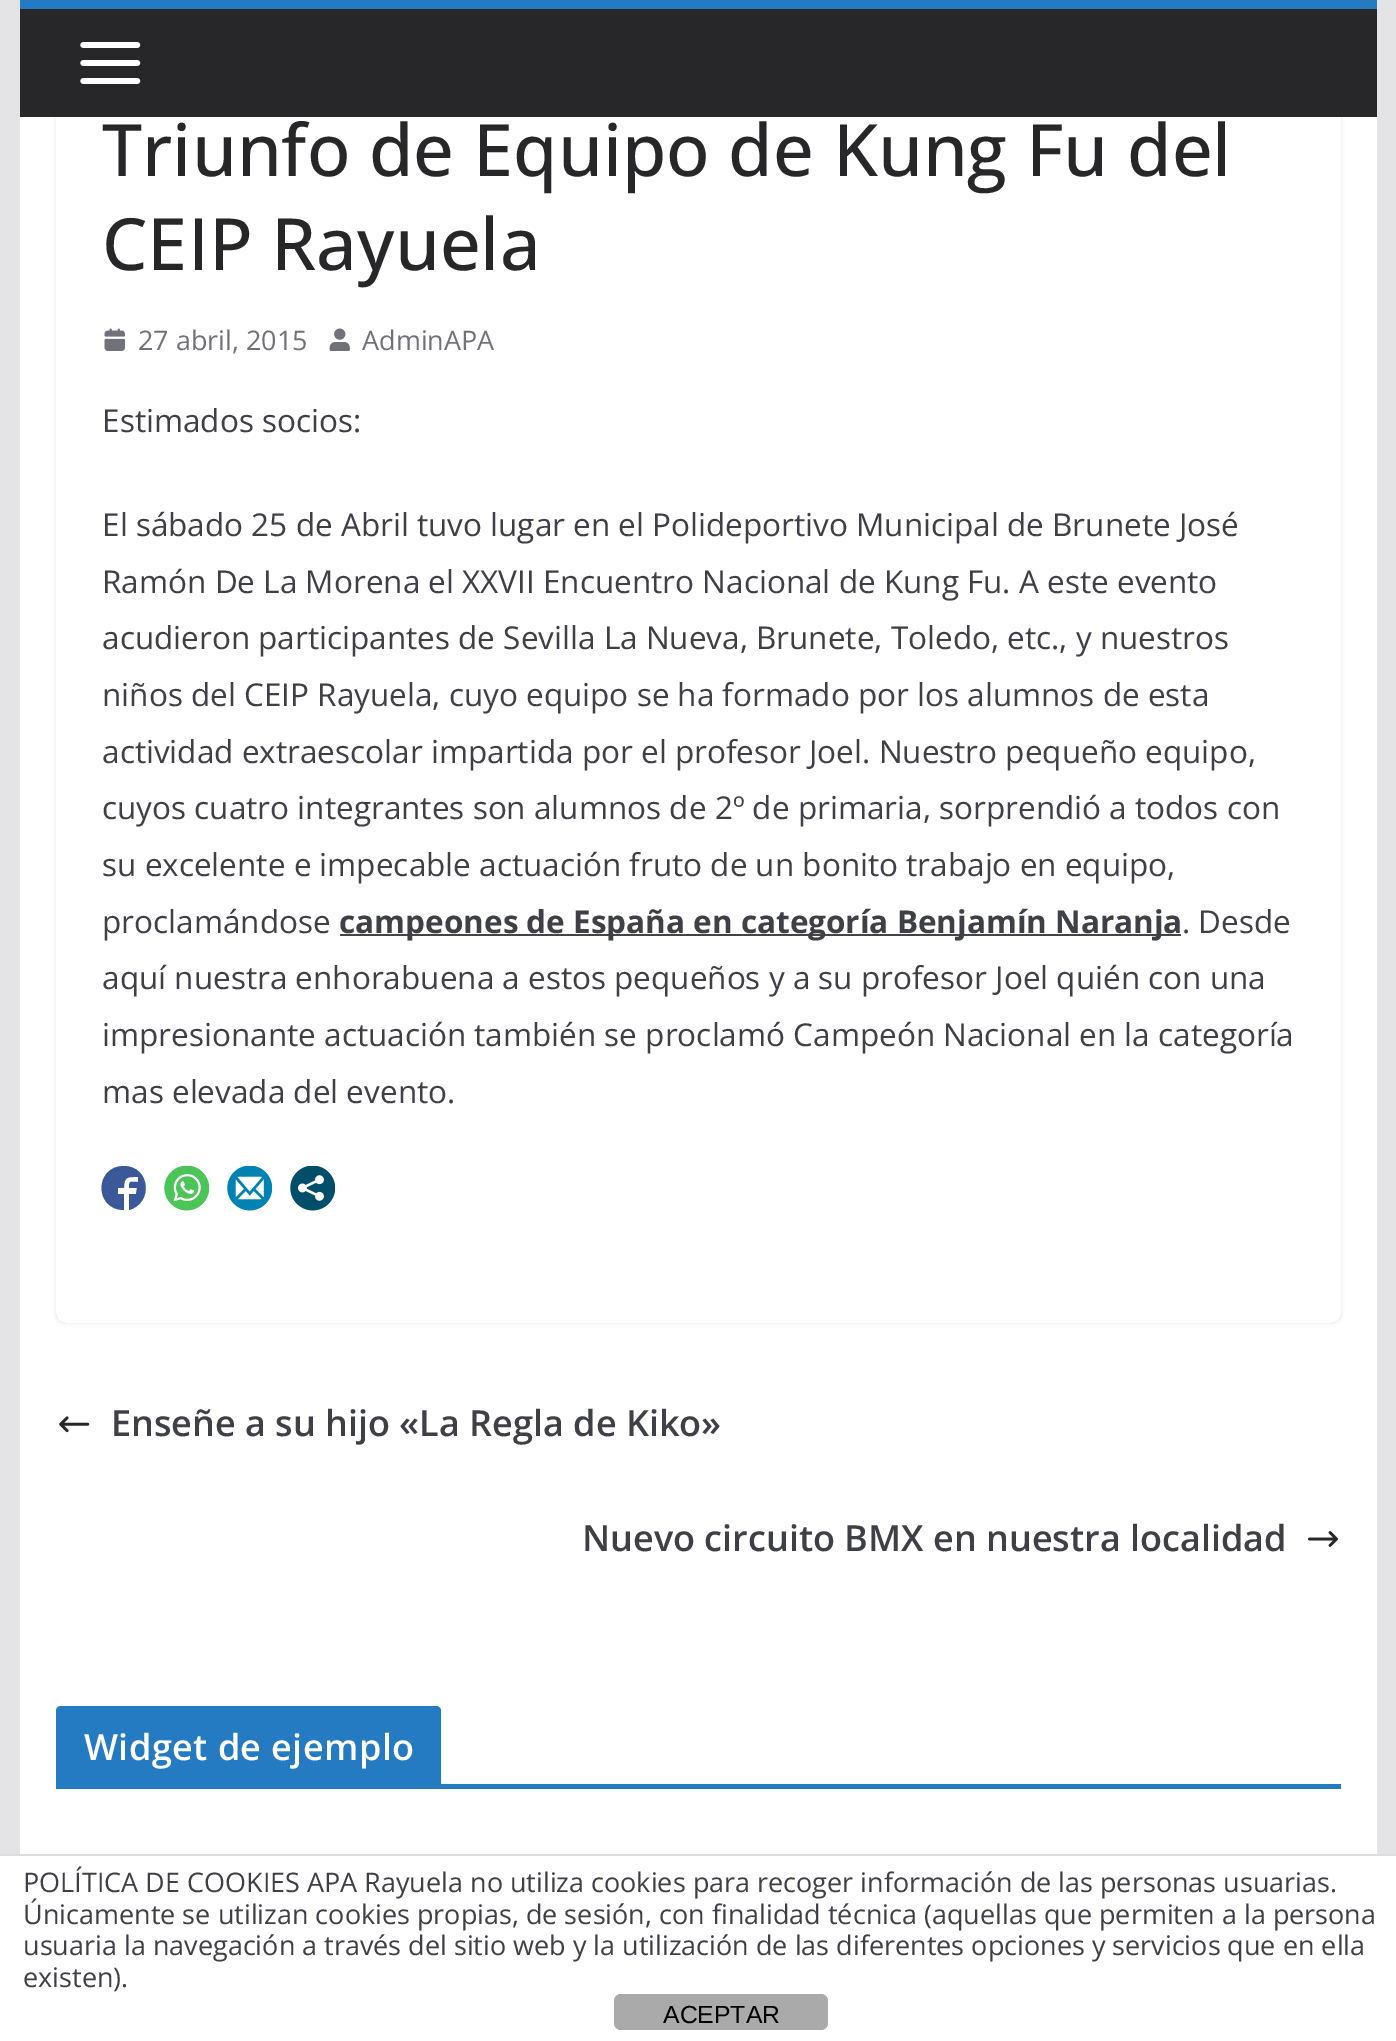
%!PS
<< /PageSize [1396 2041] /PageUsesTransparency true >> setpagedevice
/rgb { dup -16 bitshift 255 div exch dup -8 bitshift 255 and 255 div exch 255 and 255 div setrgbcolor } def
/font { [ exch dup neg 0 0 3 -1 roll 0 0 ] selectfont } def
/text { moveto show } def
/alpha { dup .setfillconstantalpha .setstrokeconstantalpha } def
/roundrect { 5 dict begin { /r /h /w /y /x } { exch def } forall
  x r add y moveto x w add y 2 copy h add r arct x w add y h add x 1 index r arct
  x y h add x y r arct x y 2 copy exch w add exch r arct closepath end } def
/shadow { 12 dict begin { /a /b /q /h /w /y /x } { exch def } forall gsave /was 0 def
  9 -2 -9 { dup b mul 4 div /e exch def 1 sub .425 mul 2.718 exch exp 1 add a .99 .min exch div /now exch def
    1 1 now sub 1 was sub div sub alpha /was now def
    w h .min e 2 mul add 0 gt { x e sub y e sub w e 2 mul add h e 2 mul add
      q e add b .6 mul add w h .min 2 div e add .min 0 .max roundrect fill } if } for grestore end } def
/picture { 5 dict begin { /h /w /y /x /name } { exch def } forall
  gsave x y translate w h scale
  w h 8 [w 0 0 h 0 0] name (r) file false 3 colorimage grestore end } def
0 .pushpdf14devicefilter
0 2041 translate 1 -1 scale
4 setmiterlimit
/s1 { /OpenSans-Medium 72 font 16#27272A rgb } def
/s2 { /OpenSans-Regular 27 font 16#71717A rgb } def
/s3 { /OpenSans-Regular 31.5 font 16#3F3F46 rgb } def
/s4 { /OpenSans-Bold 31.5 font 16#3F3F46 rgb } def
/s5 { /OpenSans-SemiBold 36 font 16#3F3F46 rgb } def
/s6 { /OpenSans-Regular 27 font 16#3F3F46 rgb } def
/s7 { /LiberationSans-Regular 24.75 font 16#000000 rgb } def
16#E4E4E7 rgb
0 0 1396 2041 rectfill
16#FFFFFF rgb
20 117 1357 1737 rectfill
gsave
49 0 moveto 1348 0 lineto 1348 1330 lineto 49 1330 lineto closepath 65 -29 moveto 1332 -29 lineto 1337 -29 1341 -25 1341 -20 curveto 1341 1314 lineto 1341 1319 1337 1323 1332 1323 curveto 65 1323 lineto 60 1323 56 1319 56 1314 curveto 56 -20 lineto 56 -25 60 -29 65 -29 curveto closepath eoclip newpath
16#E4E4E7 rgb
56 -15 1285 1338 9 2 1 shadow
grestore
16#27272A rgb
20 9 1357 108 rectfill
16#257BC1 rgb
20 0 1357 9 rectfill
(pic1.raw) 80 42 61 42 picture
s1
(Triunfo de Equipo de Kung Fu del) 102 176 text
(CEIP Rayuela) 102 270 text
(pic2.raw) 104 328 21 23 picture
s2
(27 abril, 2015) 138 350 text
(pic3.raw) 329 328 21 23 picture
(AdminAPA) 362 350 text
s3
(Estimados socios:) 102 432 text
(El sábado 25 de Abril tuvo lugar en el Polideportivo Municipal de Brunete José) 102 536 text
(Ramón De La Morena el XXVII Encuentro Nacional de Kung Fu. A este evento) 102 593 text
(acudieron participantes de Sevilla La Nueva, Brunete, Toledo, etc., y nuestros) 102 649 text
(niños del CEIP Rayuela, cuyo equipo se ha formado por los alumnos de esta) 102 706 text
(actividad extraescolar impartida por el profesor Joel. Nuestro pequeño equipo,) 102 763 text
(cuyos cuatro integrantes son alumnos de 2º de primaria, sorprendió a todos con) 102 819 text
(su excelente e impecable actuación fruto de un bonito trabajo en equipo,) 102 876 text
(proclamándose) 102 933 text
16#444444 rgb
340 934 841 2 rectfill
s4
(campeones de España en categoría Benjamín Naranja) 339 933 text
s3
(. Desde) 1182 933 text
(aquí nuestra enhorabuena a estos pequeños y a su profesor Joel quién con una) 102 989 text
(impresionante actuación también se proclamó Campeón Nacional en la categoría) 102 1046 text
(mas elevada del evento.) 102 1103 text
16#3B5998 rgb
124 1166 moveto 94 1166 94 1210 124 1210 curveto 124 1194 lineto 118 1194 lineto 118 1188 lineto 124 1188 lineto 124 1176 128 1177 138 1177 curveto 138 1182 lineto 130 1182 129 1180 129 1188 curveto 137 1188 lineto 136 1194 lineto 129 1194 lineto 129 1210 lineto 154 1203 150 1166 124 1166 curveto closepath fill
(pic4.raw) 164 1166 45 45 picture
(pic5.raw) 227 1166 45 45 picture
(pic6.raw) 290 1166 45 45 picture
(pic7.raw) 59 1416 31 17 picture
s5
(Enseñe a su hijo «La Regla de Kiko») 111 1436 text
(Nuevo circuito BMX en nuestra localidad) 582 1551 text
(pic8.raw) 1308 1531 30 16 picture
16#257BC1 rgb
56 1784 1285 5 rectfill
61 1706 moveto 436 1706 lineto 439 1706 441 1708 441 1711 curveto 441 1784 lineto 56 1784 lineto 56 1711 lineto 56 1708 58 1706 61 1706 curveto closepath fill
16#FFFFFF rgb
84 1760 moveto 0.4 0 (Widget de ejemplo) ashow
0 1856 1396 185 rectfill
16#DDDDDD rgb
0 1854 1396 2 rectfill
s6
(POLÍTICA DE COOKIES APA Rayuela no utiliza cookies para recoger información de las personas usuarias.) 23 1892 text
(Únicamente se utilizan cookies propias, de sesión, con finalidad técnica \(aquellas que permiten a la persona) 23 1924 text
(usuaria la navegación a través del sitio web y la utilización de las diferentes opciones y servicios que en ella) 23 1955 text
(existen\).) 23 1987 text
16#AAAAAA rgb
614 1994 214 36 7 roundrect fill
s7
(ACEPTAR) 663 2023 text
.poppdf14devicefilter showpage
